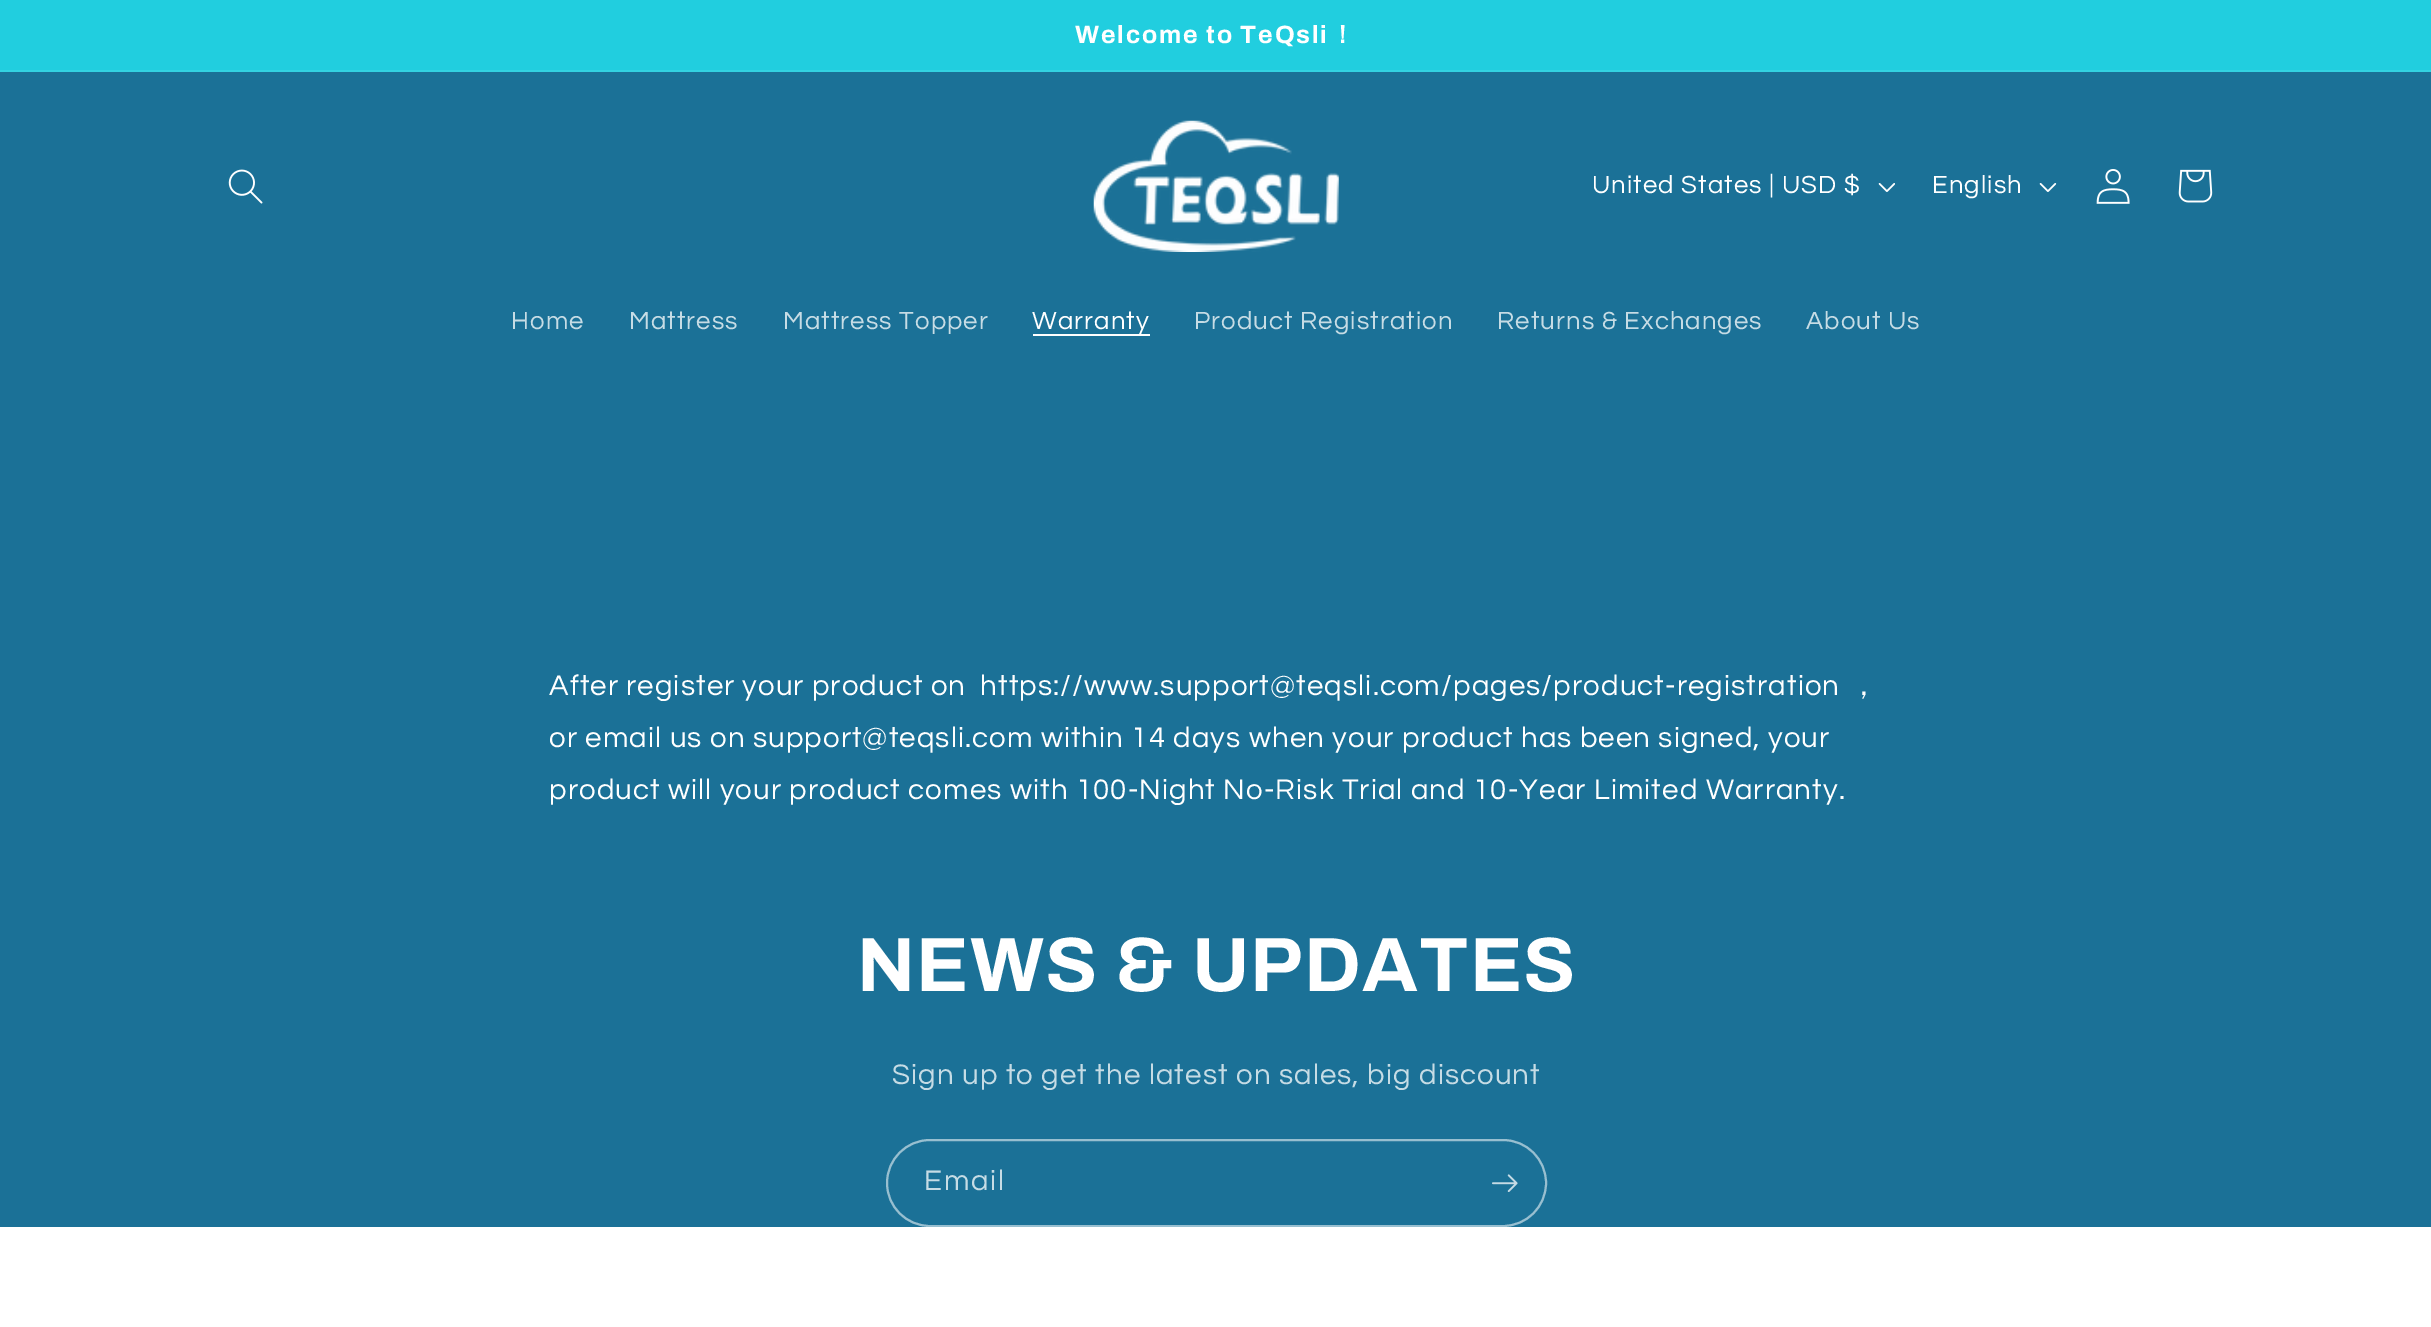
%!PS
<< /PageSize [2431 1327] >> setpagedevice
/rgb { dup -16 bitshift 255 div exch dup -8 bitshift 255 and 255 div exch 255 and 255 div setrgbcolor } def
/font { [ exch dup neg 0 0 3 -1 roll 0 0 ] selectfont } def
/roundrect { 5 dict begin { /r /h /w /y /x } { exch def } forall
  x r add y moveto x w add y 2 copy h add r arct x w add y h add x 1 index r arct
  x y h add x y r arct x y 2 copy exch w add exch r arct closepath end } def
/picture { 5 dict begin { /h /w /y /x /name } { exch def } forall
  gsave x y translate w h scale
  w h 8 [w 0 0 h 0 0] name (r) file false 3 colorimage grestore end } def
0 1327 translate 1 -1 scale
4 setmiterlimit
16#1B7197 rgb
0 0 2431 1327 rectfill
16#21CEDF rgb
0 0 2431 70 rectfill
16#33D2E2 rgb
0 70 2431 2 rectfill
/Archivo-Bold 25 font
16#FFFFFF rgb
1075 43 moveto 1.8 0 (Welcome to TeQsli) ashow
/WenQuanYiZenHei-Bold 25 font
1330 43 moveto 1.8 0 (！) ashow
(pic1.raw) 228 169 35 35 picture
(pic2.raw) 1093 120 246 132 picture
/Questrial-Regular 25.75 font
1592 193 moveto 1.1 0 (United States | USD $) ashow
(pic3.raw) 1878 183 17 9 picture
1932 193 moveto 1.1 0 (English) ashow
(pic4.raw) 2039 183 18 9 picture
(pic5.raw) 2096 169 34 35 picture
(pic6.raw) 2178 169 35 34 picture
16#C6DCE5 rgb
511 329 moveto 1.1 0 (Home) ashow
629 329 moveto 1.1 0 (Mattress) ashow
783 329 moveto 1.1 0 (Mattress Topper) ashow
16#FFFFFF rgb
1033 334 117 2 rectfill
1032 329 moveto 1.1 0 (Warranty) ashow
16#C6DCE5 rgb
1194 329 moveto 1.1 0 (Product Registration) ashow
1497 329 moveto 1.1 0 (Returns & Exchanges) ashow
1806 329 moveto 1.1 0 (About Us) ashow
/Questrial-Regular 29.4 font
16#FFFFFF rgb
549 695 moveto -0.25 0 32 1.1 0 (After register your product on  https://www.support@teqsli.com/pages/product-registration) awidthshow
/WenQuanYiZenHei-Medium 29.4 font
1849 695 moveto 1.1 0 (，) ashow
/Questrial-Regular 29.4 font
549 747 moveto 1.1 0 (or email us on support@teqsli.com within 14 days when your product has been signed, your) ashow
549 799 moveto 1.1 0 (product will your product comes with 100-Night No-Risk Trial and 10-Year Limited Warranty.) ashow
/Archivo-Bold 77 font
857 991 moveto 1.2 0 (NEWS & UPDATES) ashow
/Questrial-Regular 29.4 font
16#C6DCE5 rgb
892 1084 moveto 1.1 0 (Sign up to get the latest on sales, big discount) ashow
16#98BFD0 rgb
2 setlinewidth
887 1140 659 86 43 roundrect stroke
16#C6DCE5 rgb
924 1190 moveto 1.8 0 (Email) ashow
(pic7.raw) 1492 1174 26 18 picture
16#FFFFFF rgb
0 1227 2431 100 rectfill
showpage
